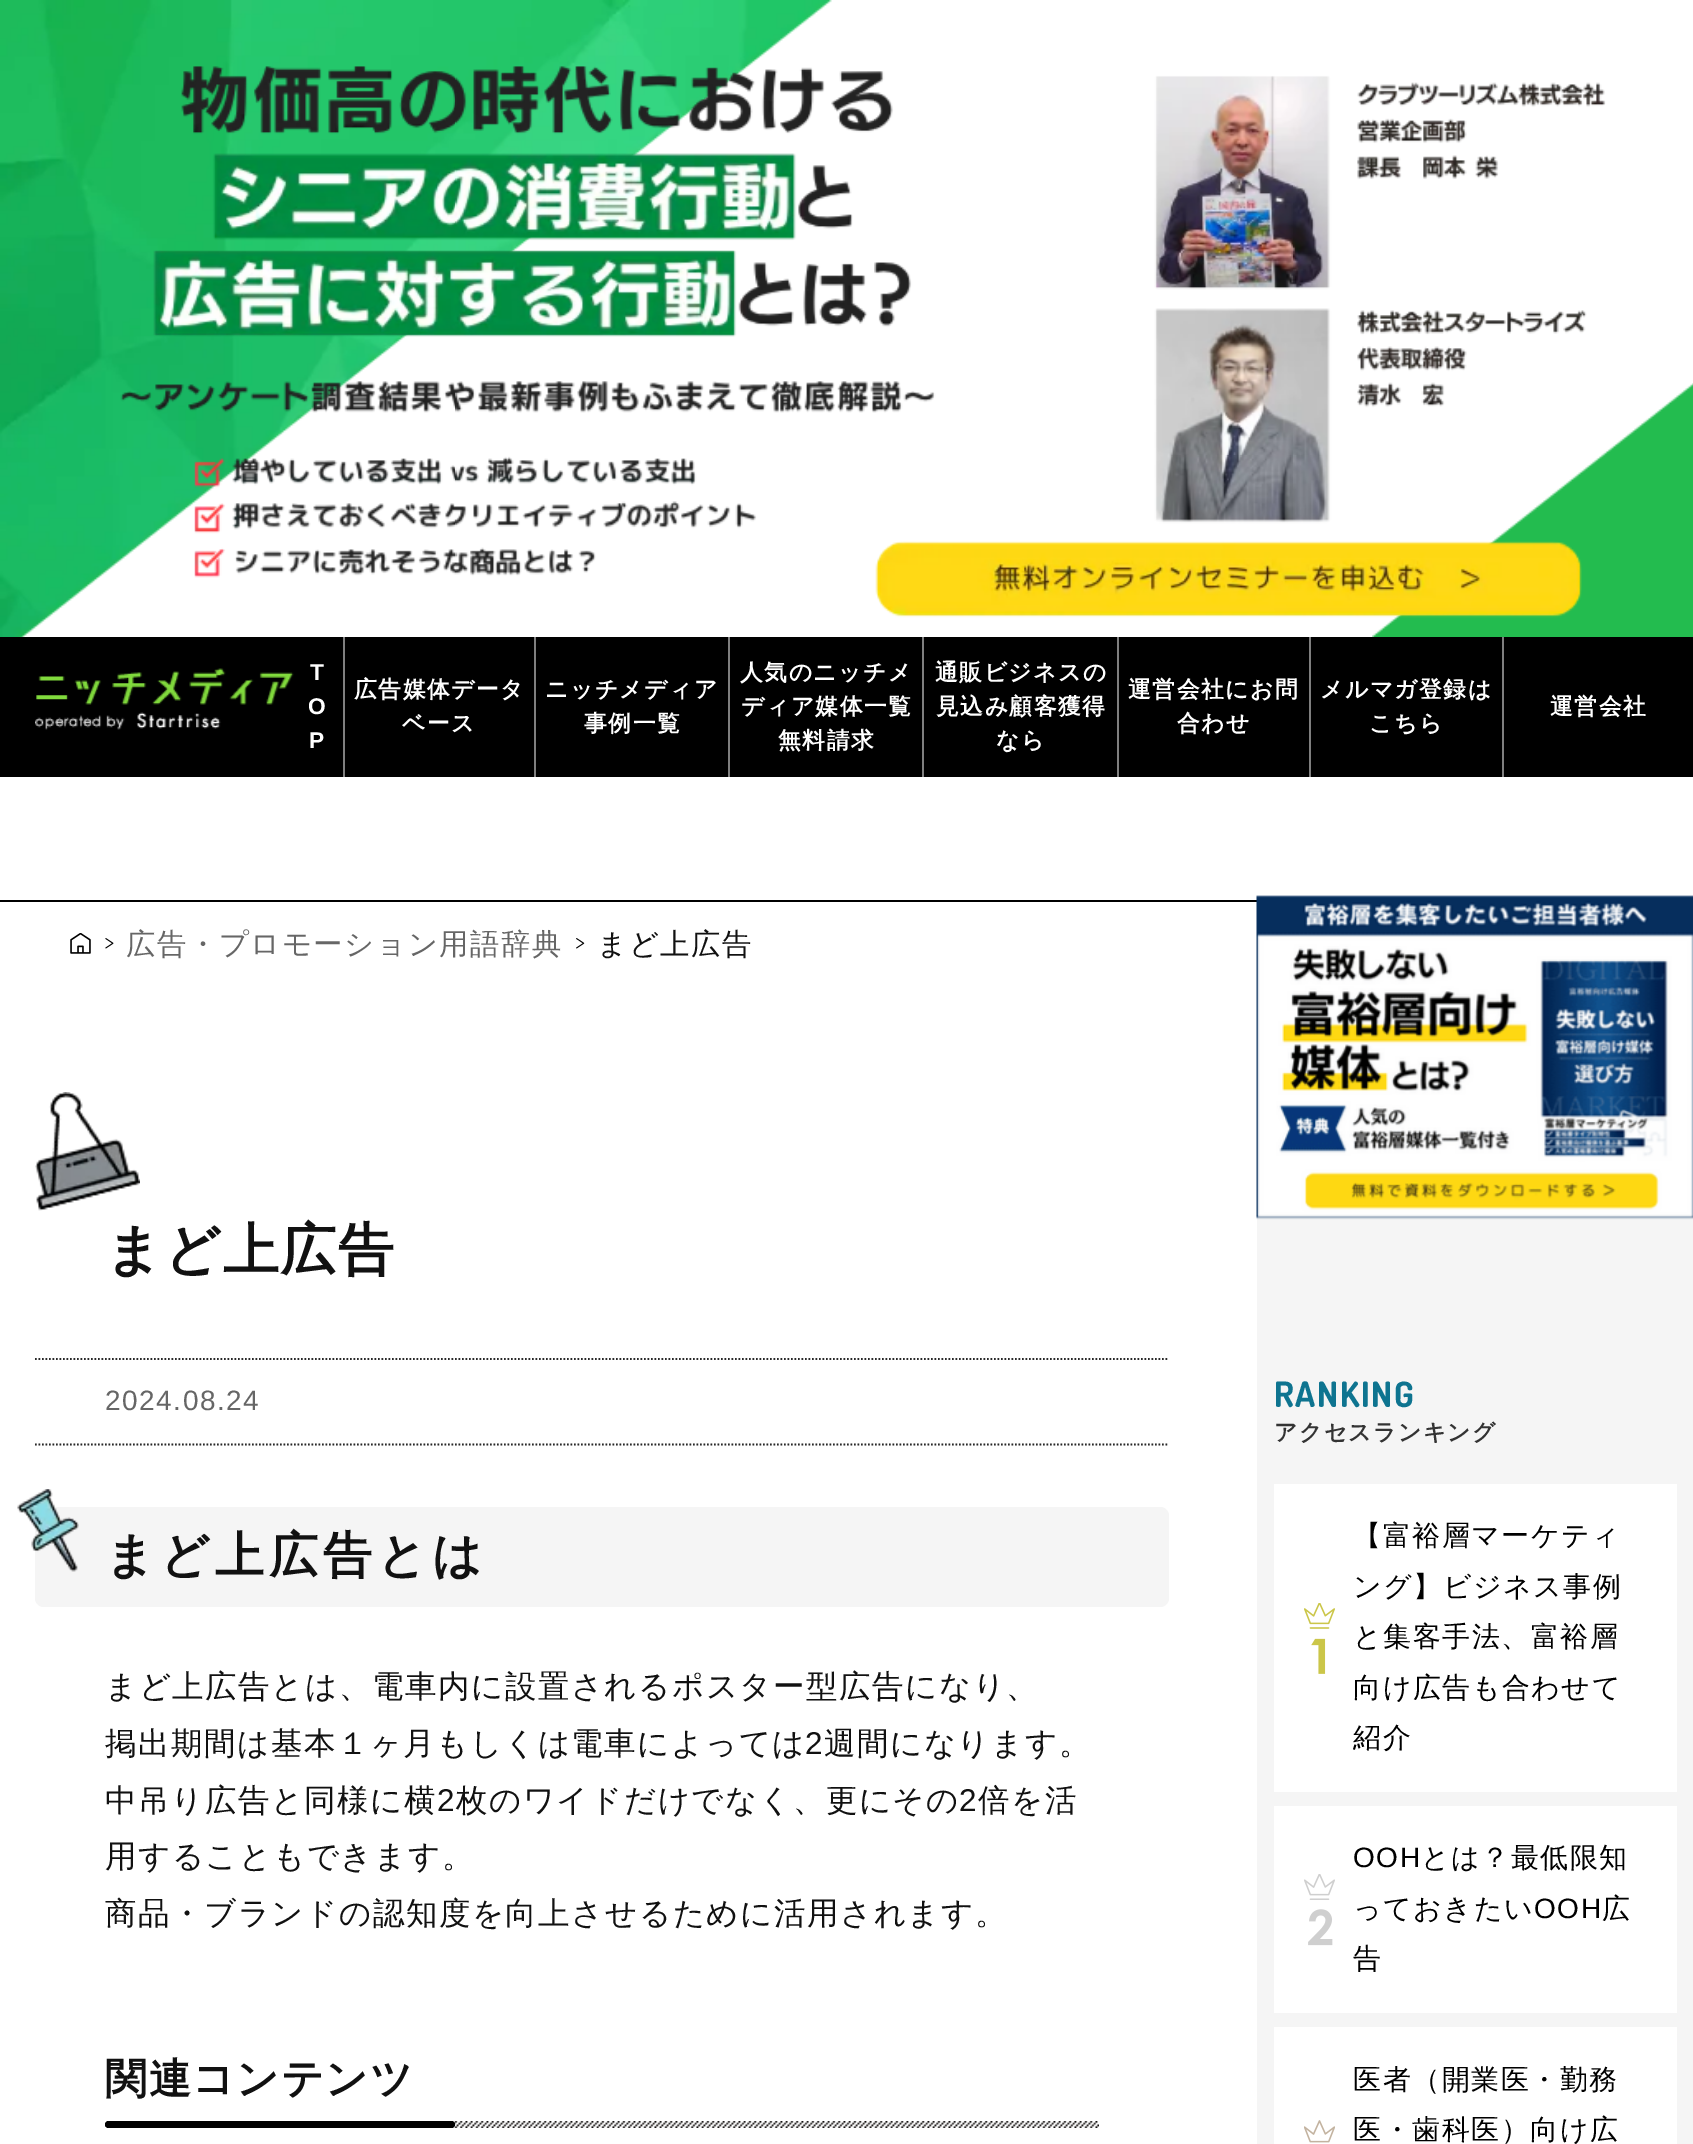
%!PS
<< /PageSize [1693 2144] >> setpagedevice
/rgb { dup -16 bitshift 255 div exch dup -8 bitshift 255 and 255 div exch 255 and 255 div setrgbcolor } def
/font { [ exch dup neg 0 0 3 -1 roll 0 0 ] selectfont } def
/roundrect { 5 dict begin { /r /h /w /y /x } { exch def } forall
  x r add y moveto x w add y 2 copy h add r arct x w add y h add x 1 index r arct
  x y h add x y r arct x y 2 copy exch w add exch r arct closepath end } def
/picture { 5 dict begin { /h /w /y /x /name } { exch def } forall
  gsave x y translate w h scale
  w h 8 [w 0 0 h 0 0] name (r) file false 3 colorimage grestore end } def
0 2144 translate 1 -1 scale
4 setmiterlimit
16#FFFFFF rgb
0 0 1693 2144 rectfill
(pic1.raw) 0 0 832 637 picture
(pic3.raw) 1372 383 321 254 picture
(pic2.raw) 120 66 1486 552 picture
16#000000 rgb
0 637 1693 140 rectfill
(pic4.raw) 35 668 259 62 picture
16#7F7F7F rgb
343 637 2 140 rectfill
/LiberationSans-Bold 22.75 font
16#FFFFFF rgb
310 680 moveto 1.5 0 (T) ashow
308 714 moveto 1.5 0 (O) ashow
309 748 moveto 1.5 0 (P) ashow
16#7F7F7F rgb
534 637 2 140 rectfill
/WenQuanYiZenHei-Bold 22.75 font
16#FFFFFF rgb
354 697 moveto 1.5 0 (広告媒体データ) ashow
402 731 moveto 1.5 0 (ベース) ashow
16#7F7F7F rgb
728 637 2 140 rectfill
16#FFFFFF rgb
545 697 moveto 1.5 0 (ニッチメディア) ashow
584 731 moveto 1.5 0 (事例一覧) ashow
16#7F7F7F rgb
922 637 2 140 rectfill
16#FFFFFF rgb
740 680 moveto 1.5 0 (人気のニッチメ) ashow
741 714 moveto 1.5 0 (ディア媒体一覧) ashow
778 748 moveto 1.5 0 (無料請求) ashow
16#7F7F7F rgb
1117 637 2 140 rectfill
16#FFFFFF rgb
935 680 moveto 1.5 0 (通販ビジネスの) ashow
936 714 moveto 1.5 0 (見込み顧客獲得) ashow
996 748 moveto 1.5 0 (なら) ashow
16#7F7F7F rgb
1309 637 2 140 rectfill
16#FFFFFF rgb
1128 697 moveto 1.5 0 (運営会社にお問) ashow
1177 731 moveto 1.5 0 (合わせ) ashow
16#7F7F7F rgb
1502 637 2 140 rectfill
16#FFFFFF rgb
1320 697 moveto 1.5 0 (メルマガ登録は) ashow
1369 731 moveto 1.5 0 (こちら) ashow
1550 714 moveto 1.5 0 (運営会社) ashow
16#000000 rgb
0 900 1257 2 rectfill
(pic5.raw) 70 933 21 21 picture
(pic6.raw) 105 938 9 11 picture
/WenQuanYiZenHei-Medium 29.4 font
16#666666 rgb
126 954 moveto 1.5 0 (広告・プロモーション用語辞典) ashow
(pic7.raw) 576 938 9 11 picture
16#111111 rgb
597 954 moveto 1.5 0 (まど上広告) ashow
(pic8.raw) 35 1092 105 119 picture
/WenQuanYiZenHei-Bold 56 font
105 1269 moveto 1.5 0 (まど上広告) ashow
16#282828 rgb
1.8 setlinewidth
[1.75 1.75] 0 setdash
35 1359 moveto 1169 1359 lineto stroke
35 1444.5 moveto 1169 1444.5 lineto stroke
/LiberationSans-Regular 28 font
16#666666 rgb
105 1410 moveto 1.5 0 (2024.08.24) ashow
16#F5F5F5 rgb
35 1507 1134 100 9 roundrect fill
(pic9.raw) 17 1489 62 83 picture
/WenQuanYiZenHei-Bold 49 font
16#111111 rgb
105 1572 moveto 5 0 (まど上広告とは) ashow
/WenQuanYiZenHei-Medium 31.5 font
105 1697 moveto 1.5 0 (まど上広告とは、電車内に設置されるポスター型広告になり、) ashow
105 1754 moveto 1.5 0 (掲出期間は基本１ヶ月もしくは電車によっては) ashow
/LiberationSans-Regular 31.5 font
805 1754 moveto 1.5 0 (2) ashow
/WenQuanYiZenHei-Medium 31.5 font
824 1754 moveto 1.5 0 (週間になります。) ashow
105 1811 moveto 1.5 0 (中吊り広告と同様に横) ashow
/LiberationSans-Regular 31.5 font
437 1811 moveto 1.5 0 (2) ashow
/WenQuanYiZenHei-Medium 31.5 font
456 1811 moveto 1.5 0 (枚のワイドだけでなく、更にその) ashow
/LiberationSans-Regular 31.5 font
959 1811 moveto 1.5 0 (2) ashow
/WenQuanYiZenHei-Medium 31.5 font
978 1811 moveto 1.5 0 (倍を活) ashow
105 1867 moveto 1.5 0 (用することもできます。) ashow
105 1924 moveto 1.5 0 (商品・ブランドの認知度を向上させるために活用されます。) ashow
/WenQuanYiZenHei-Bold 42 font
105 2093 moveto 1.5 0 (関連コンテンツ) ashow
(pic10.raw) 105 2121 994 7 picture
16#000000 rgb
105 2121 350 7 3.5 roundrect fill
16#F5F5F5 rgb
1257 896 436 1248 rectfill
(pic11.raw) 1256 895 437 325 picture
/Dosis-Bold 35 font
16#0E7490 rgb
1274 1407 moveto 1.5 0 (RANKING) ashow
/WenQuanYiZenHei-Bold 22.75 font
16#333333 rgb
1274 1440 moveto 1.5 0 (アクセスランキング) ashow
16#FFFFFF rgb
1274 1484 403 308 rectfill
(pic12.raw) 1304 1603 31 71 picture
/WenQuanYiZenHei-Medium 28 font
16#000000 rgb
1353 1545 moveto 1.5 0 (【富裕層マーケティ) ashow
1353 1596 moveto 1.5 0 (ング】ビジネス事例) ashow
1353 1646 moveto 1.5 0 (と集客手法、富裕層) ashow
1353 1697 moveto 1.5 0 (向け広告も合わせて) ashow
1353 1747 moveto 1.5 0 (紹介) ashow
16#FFFFFF rgb
1274 1806 403 207 rectfill
(pic13.raw) 1304 1874 31 72 picture
/LiberationSans-Regular 28 font
16#000000 rgb
1353 1867 moveto 1.5 0 (OOH) ashow
/WenQuanYiZenHei-Medium 28 font
1421 1867 moveto 1.5 0 (とは？最低限知) ashow
1353 1918 moveto 1.5 0 (っておきたい) ashow
/LiberationSans-Regular 28 font
1534 1918 moveto 1.5 0 (OOH) ashow
/WenQuanYiZenHei-Medium 28 font
1602 1918 moveto 1.5 0 (広) ashow
1353 1968 moveto 1.5 0 (告) ashow
16#FFFFFF rgb
1274 2027 403 117 rectfill
(pic14.raw) 1304 2120 31 23 picture
16#000000 rgb
1353 2089 moveto 1.5 0 (医者（開業医・勤務) ashow
1353 2139 moveto 1.5 0 (医・歯科医）向け広) ashow
showpage
